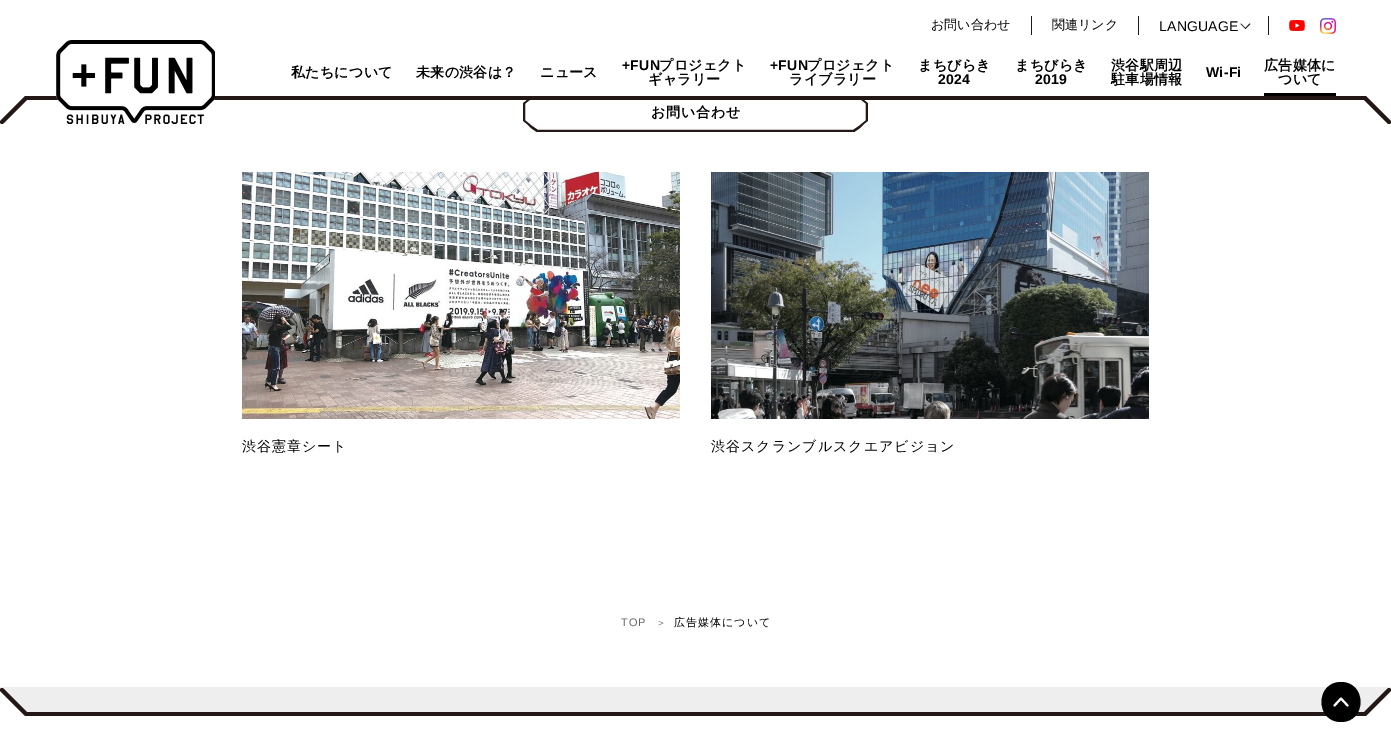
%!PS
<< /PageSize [1391 752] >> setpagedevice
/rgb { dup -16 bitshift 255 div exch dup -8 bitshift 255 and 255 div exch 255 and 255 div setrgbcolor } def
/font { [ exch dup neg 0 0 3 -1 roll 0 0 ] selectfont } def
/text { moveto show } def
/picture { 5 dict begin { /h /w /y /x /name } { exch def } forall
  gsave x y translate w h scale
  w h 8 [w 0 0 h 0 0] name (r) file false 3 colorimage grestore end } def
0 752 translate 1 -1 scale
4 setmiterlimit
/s1 { /WenQuanYiZenHei-Medium 13 font 16#000000 rgb } def
/s2 { /WenQuanYiZenHei-Medium 10 font 16#666666 rgb } def
16#FFFFFF rgb
0 0 1391 752 rectfill
s1
(お問い合わせ) 931 29 text
16#231815 rgb
1031 16 1 19 rectfill
s1
(関連リンク) 1052 29 text
16#231815 rgb
1138 16 1 19 rectfill
/LiberationSans-Regular 14 font
16#000000 rgb
1159 31 moveto 0.25 0 (LANGUAGE) ashow
16#231815 rgb
1249.5 23.5 moveto 1250.5 24 lineto 1245.5 29 lineto 1245 28.5 lineto closepath fill
1241 23.5 moveto 1246 28.5 lineto 1245.5 29 lineto 1240.5 24 lineto closepath fill
1268 16 1 19 rectfill
(pic1.raw) 1289 20 16 11 picture
(pic2.raw) 1320 18 16 16 picture
27 96 1337 4 rectfill
(pic3.raw) 56 40 159 84 picture
/WenQuanYiZenHei-Bold 14 font
16#000000 rgb
291 77 moveto 0.25 0 (私たちについて) ashow
416 77 moveto 0.25 0 (未来の渋谷は？) ashow
540 77 moveto 0.25 0 (ニュース) ashow
/LiberationSans-Bold 14 font
622 70 moveto 0.25 0 (+FUN) ashow
/WenQuanYiZenHei-Bold 14 font
659 70 moveto 0.25 0 (プロジェクト) ashow
648 84 moveto 0.25 0 (ギャラリー) ashow
/LiberationSans-Bold 14 font
770 70 moveto 0.25 0 (+FUN) ashow
/WenQuanYiZenHei-Bold 14 font
807 70 moveto 0.25 0 (プロジェクト) ashow
789 84 moveto 0.25 0 (ライブラリー) ashow
918 70 moveto 0.25 0 (まちびらき) ashow
/LiberationSans-Bold 14 font
938 84 moveto 0.25 0 (2024) ashow
/WenQuanYiZenHei-Bold 14 font
1015 70 moveto 0.25 0 (まちびらき) ashow
/LiberationSans-Bold 14 font
1035 84 moveto 0.25 0 (2019) ashow
/WenQuanYiZenHei-Bold 14 font
1111 70 moveto 0.25 0 (渋谷駅周辺) ashow
1111 84 moveto 0.25 0 (駐車場情報) ashow
/LiberationSans-Bold 14 font
1206 77 moveto 0.25 0 (Wi-Fi) ashow
/WenQuanYiZenHei-Bold 14 font
1264 70 moveto 0.25 0 (広告媒体に) ashow
1278 84 moveto 0.25 0 (ついて) ashow
1264 93 72 3 rectfill
gsave
0 96 moveto 27 96 lineto 27 124 lineto 0 124 lineto closepath clip newpath
16#231815 rgb
4 setlinewidth
1 setlinecap
2 122 moveto 26 98 lineto 1036 98 lineto 1060 122 lineto stroke
grestore
gsave
1364 96 moveto 1391 96 lineto 1391 124 lineto 1364 124 lineto closepath clip newpath
16#231815 rgb
4 setlinewidth
1 setlinecap
331 122 moveto 355 98 lineto 1365 98 lineto 1389 122 lineto stroke
grestore
(pic4.raw) 523 100 345 32 picture
651 117 moveto 0.75 0 (お問い合わせ) ashow
(pic5.raw) 242 172 438 247 picture
/WenQuanYiZenHei-Medium 14 font
242 451 moveto 1 0 (渋谷憲章シート) ashow
(pic6.raw) 711 172 438 247 picture
711 451 moveto 1 0 (渋谷スクランブルスクエアビジョン) ashow
/LiberationSans-Regular 11 font
16#666666 rgb
621 626 moveto 1 0 (TOP) ashow
s2
(＞) 656 626 text
/WenQuanYiZenHei-Medium 11 font
16#000000 rgb
674 626 moveto 1 0 (広告媒体について) ashow
16#EEEEEE rgb
0 687 1391 25 rectfill
16#231815 rgb
27 712 1337 4 rectfill
16#000000 rgb
1341 682 moveto 1367 682 1367 722 1341 722 curveto 1315 722 1315 682 1341 682 curveto closepath fill
16#FFFFFF rgb
2 setlinewidth
1 setlinecap
1 setlinejoin
1347.5 705.5 moveto 1341 698.5 lineto 1334.5 705.5 lineto stroke
27 716 moveto 27 712 lineto 24 712 lineto 0 688 lineto 0 716 lineto closepath fill
gsave
27 716 moveto 0 716 lineto 0 688 lineto 27 688 lineto closepath clip newpath
16#231815 rgb
4 setlinewidth
0 setlinejoin
1060 690 moveto 1036 714 lineto 26 714 lineto 2 690 lineto stroke
grestore
1391 716 moveto 1391 688 lineto 1389 688 lineto 1365 712 lineto 1364 712 lineto 1364 716 lineto closepath fill
gsave
1391 716 moveto 1364 716 lineto 1364 688 lineto 1391 688 lineto closepath clip newpath
16#231815 rgb
4 setlinewidth
0 setlinejoin
1389 690 moveto 1365 714 lineto 355 714 lineto 331 690 lineto stroke
grestore
showpage
